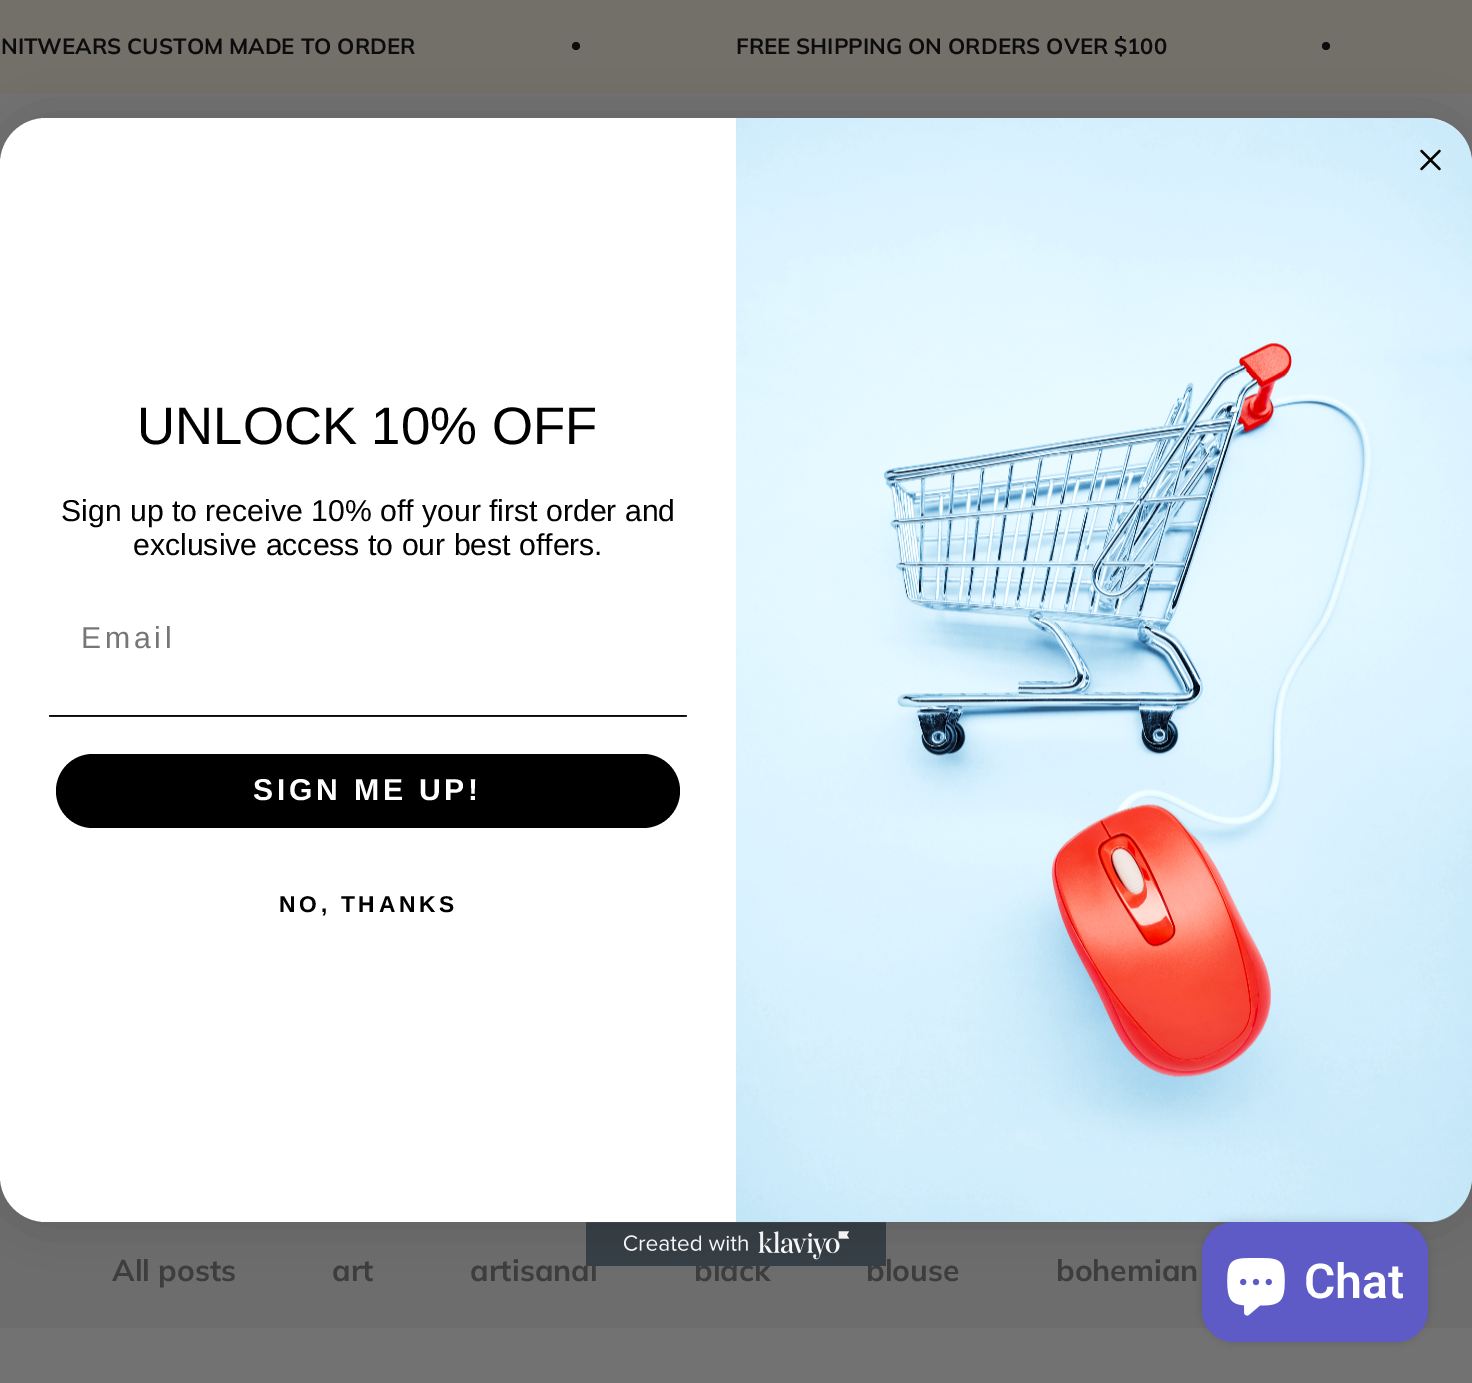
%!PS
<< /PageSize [1472 1383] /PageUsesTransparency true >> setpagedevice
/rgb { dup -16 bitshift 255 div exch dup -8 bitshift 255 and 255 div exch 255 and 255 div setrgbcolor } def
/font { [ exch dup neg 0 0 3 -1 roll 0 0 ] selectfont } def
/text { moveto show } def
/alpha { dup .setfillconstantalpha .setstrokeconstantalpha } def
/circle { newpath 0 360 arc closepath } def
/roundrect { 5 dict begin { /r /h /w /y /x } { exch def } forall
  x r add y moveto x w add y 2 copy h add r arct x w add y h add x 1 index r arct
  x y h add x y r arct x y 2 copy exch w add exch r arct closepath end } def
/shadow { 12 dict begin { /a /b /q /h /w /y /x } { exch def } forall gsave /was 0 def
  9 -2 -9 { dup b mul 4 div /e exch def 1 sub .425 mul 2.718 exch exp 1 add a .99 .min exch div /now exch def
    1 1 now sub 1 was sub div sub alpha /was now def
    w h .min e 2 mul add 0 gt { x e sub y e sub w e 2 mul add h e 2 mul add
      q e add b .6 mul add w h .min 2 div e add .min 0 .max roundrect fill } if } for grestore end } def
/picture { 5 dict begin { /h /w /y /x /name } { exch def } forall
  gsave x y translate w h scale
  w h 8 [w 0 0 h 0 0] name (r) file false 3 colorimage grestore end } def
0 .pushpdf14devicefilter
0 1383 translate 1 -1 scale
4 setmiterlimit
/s1 { /Muli-Bold 22 font 16#0C0C0C rgb } def
/s2 { /Muli-Bold 30 font 16#3D3D3D rgb } def
/s3 { /LiberationSans-Regular 52.75 font 16#000000 rgb } def
/s4 { /LiberationSans-Regular 30.2 font 16#000000 rgb } def
/s5 { /Roboto-SemiBold 48 font 16#FFFFFF rgb } def
16#727272 rgb
0 0 1472 1383 rectfill
16#727069 rgb
0 0 1472 94 rectfill
s1
(NITWEARS CUSTOM MADE TO ORDER) 1 54 text
576 46 4 circle fill
(FREE SHIPPING ON ORDERS OVER $100) 736 54 text
1326 46 4 circle fill
16#6D6D6D rgb
0 1176 1472 152 rectfill
s2
(artisanal) 470 1281 text
(black) 694 1281 text
(blouse) 866 1281 text
(pic3.raw) 586 1222 300 44 picture
16#000000 rgb
0 118 1472 1104 46 28.5 0.15 shadow
16#FFFFFF rgb
0 118 1472 1104 46 roundrect fill
(pic2.raw) 736 118 736 1104 picture
16#000000 rgb
2.3 setlinewidth
1 setlinecap
1 setlinejoin
1421.5 151 moveto 1439.5 169 lineto 1421.5 169 moveto 1439.5 151 lineto closepath stroke
s3
(UNLOCK 10% OFF) 137 444 text
s4
(Sign up to receive 10% off your first order and) 61 521 text
(exclusive access to our best offers.) 133 555 text
16#767676 rgb
81 648 moveto 3.75 0 (Email) ashow
(pic1.raw) 49 715 638 2 picture
16#000000 rgb
56 754 624 74 37 roundrect fill
/LiberationSans-Bold 30.2 font
16#FFFFFF rgb
253 800 moveto 3.75 0 (SIGN ME UP!) ashow
/LiberationSans-Bold 22.75 font
16#000000 rgb
279 912 moveto 3.75 0 (NO, THANKS) ashow
s2
(All posts) 112 1281 text
(art) 332 1281 text
(bohemian) 1056 1281 text
16#000000 rgb
1202 1222 226 120 32 5 0.15 shadow
16#5E5BC6 rgb
1202 1222 226 120 32 roundrect fill
(pic4.raw) 1227 1258 58 58 picture
s5
(Chat) 1304 1298 text
.poppdf14devicefilter showpage
